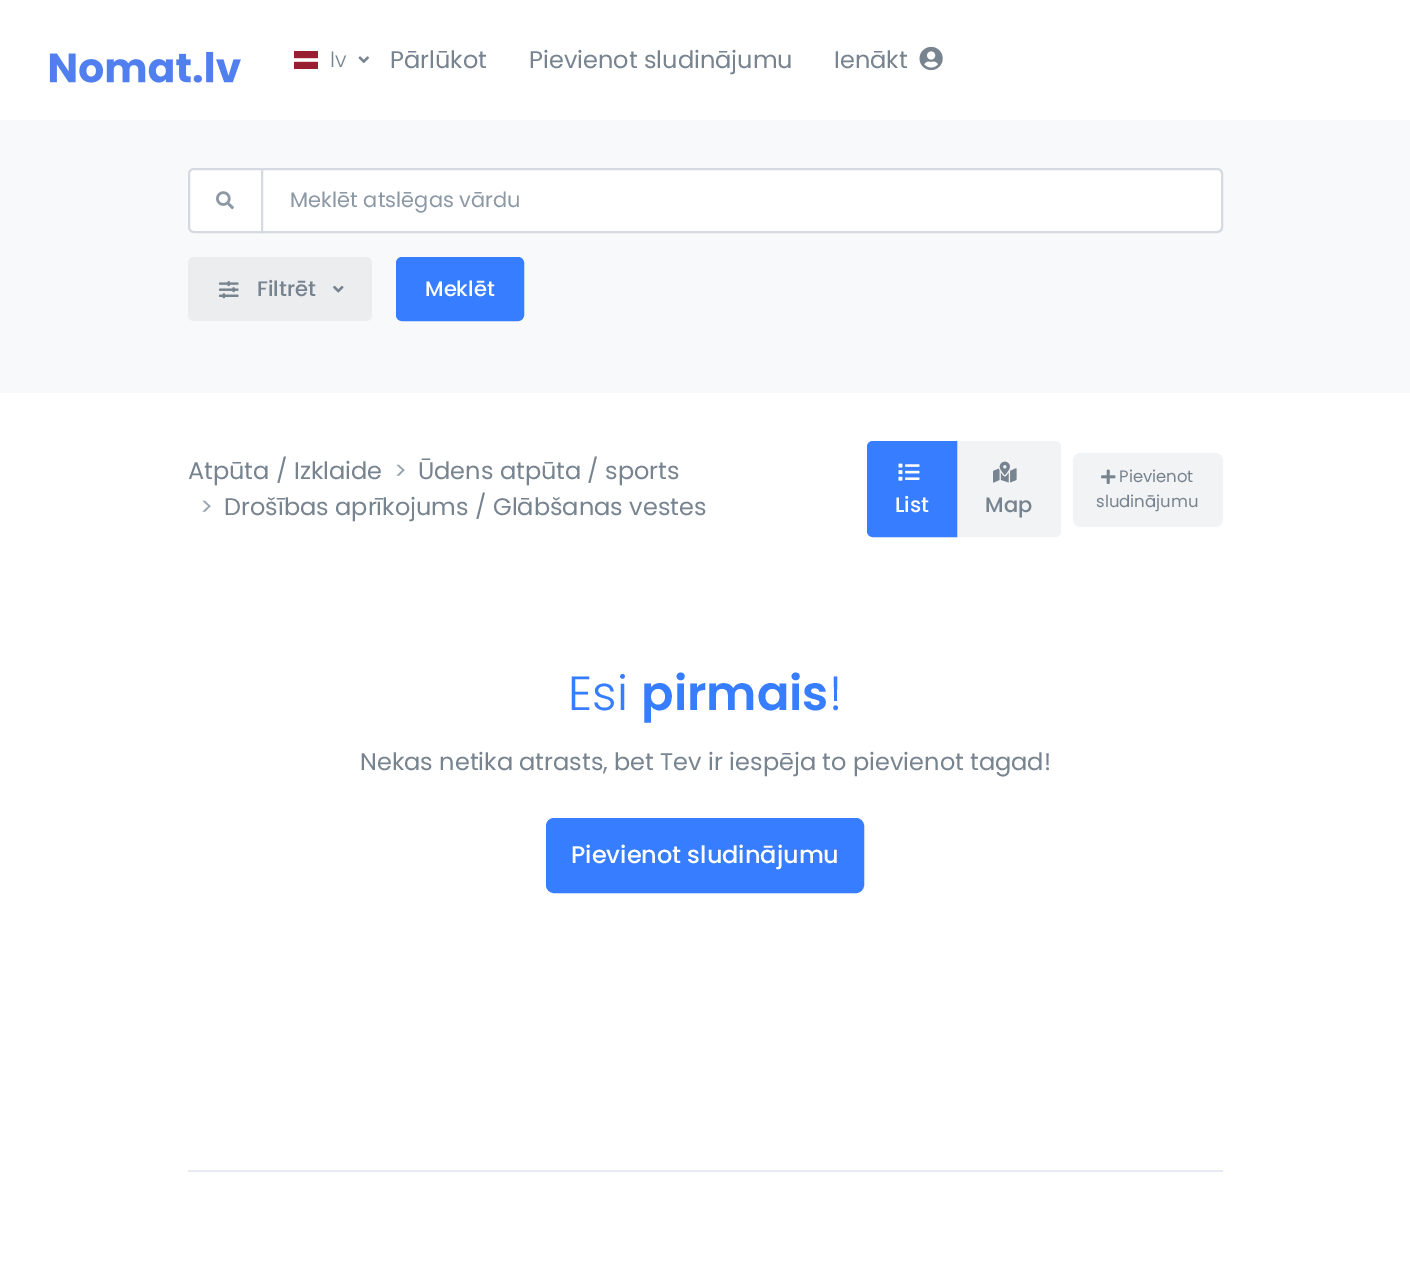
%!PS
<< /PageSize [1410 1276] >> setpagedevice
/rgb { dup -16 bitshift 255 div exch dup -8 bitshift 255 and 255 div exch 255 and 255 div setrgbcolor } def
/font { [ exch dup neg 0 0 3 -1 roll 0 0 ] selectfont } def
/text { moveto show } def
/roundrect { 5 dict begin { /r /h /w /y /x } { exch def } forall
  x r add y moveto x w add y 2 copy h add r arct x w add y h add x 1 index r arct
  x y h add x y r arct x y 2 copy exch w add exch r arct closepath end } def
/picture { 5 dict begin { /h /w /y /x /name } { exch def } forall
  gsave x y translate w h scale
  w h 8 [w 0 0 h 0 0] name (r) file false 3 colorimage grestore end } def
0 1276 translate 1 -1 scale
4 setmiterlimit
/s1 { /Poppins-Light 21 font 16#77838F rgb } def
/s2 { /Poppins-Regular 24 font 16#77838F rgb } def
/s3 { /Poppins-Regular 21 font 16#8C98A4 rgb } def
/s4 { /Poppins-Medium 21 font 16#77838F rgb } def
/s5 { /Poppins-Medium 21 font 16#FFFFFF rgb } def
/s6 { /Poppins-Regular 24 font 16#97A4AF rgb } def
/s7 { /Poppins-Regular 16.5 font 16#77838F rgb } def
/s8 { /Poppins-Light 48 font 16#377DFF rgb } def
/s9 { /Poppins-SemiBold 48 font 16#377DFF rgb } def
/s10 { /Poppins-Medium 24 font 16#FFFFFF rgb } def
16#FFFFFF rgb
0 0 1410 1276 rectfill
(pic1.raw) 49 51 192 32 picture
(pic2.raw) 294 51 24 18 picture
s1
(lv) 330 67 text
(pic3.raw) 358 56 11 7 picture
s2
(Pārlūkot) 390 68 text
(Pievienot sludinājumu) 529 68 text
(Ienākt) 834 68 text
(pic4.raw) 919 46 24 25 picture
16#F8F9FA rgb
0 120 1410 273 rectfill
16#FFFFFF rgb
194 169 moveto 262 169 lineto 262 232 lineto 194 232 lineto 191 232 189 230 189 227 curveto 189 174 lineto 189 171 191 169 194 169 curveto closepath gsave fill grestore
16#D5DAE2 rgb
2 setlinewidth
stroke
(pic5.raw) 216 191 18 19 picture
16#FFFFFF rgb
262 169 moveto 1217 169 lineto 1220 169 1222 171 1222 174 curveto 1222 227 lineto 1222 230 1220 232 1217 232 curveto 262 232 lineto closepath gsave fill grestore
16#D5DAE2 rgb
stroke
s3
(Meklēt atslēgas vārdu) 290 207 text
16#EBEDEF rgb
188 257 184 64 6 roundrect fill
(pic6.raw) 219 281 20 18 picture
s4
(Filtrēt) 257 296 text
(pic7.raw) 333 285 11 8 picture
16#377DFF rgb
397 258 126 62 5 roundrect gsave fill grestore
stroke
s5
(Meklēt) 425 296 text
s2
(Atpūta / Izklaide) 188 479 text
s6
(>) 394 479 text
s2
(Ūdens atpūta / sports) 418 479 text
s6
(>) 200 515 text
s2
(Drošības aprīkojums / Glābšanas vestes) 224 515 text
16#F1F3F4 rgb
956 441 moveto 1055 441 lineto 1058.5 441 1061 443.5 1061 447 curveto 1061 531 lineto 1061 534.5 1058.5 537 1055 537 curveto 956 537 lineto closepath fill
16#377DFF rgb
873 442 moveto 956 442 lineto 956 536 lineto 873 536 lineto 870 536 868 534 868 531 curveto 868 447 lineto 868 444 870 442 873 442 curveto closepath gsave fill grestore
stroke
(pic8.raw) 898 463 22 18 picture
s5
(List) 895 512 text
(pic9.raw) 993 461 24 22 picture
s4
(Map) 985 512 text
16#F1F3F4 rgb
1073 453 150 74 8 roundrect fill
(pic10.raw) 1101 469 15 15 picture
s7
(Pievienot) 1119 482 text
(sludinājumu) 1096 507 text
s8
(Esi) 568 710 text
s9
(pirmais) 641 710 text
s8
(!) 829 710 text
s2
(Nekas netika atrasts, bet Tev ir iespēja to pievienot tagad!) 360 770 text
16#377DFF rgb
547 819 316 73 7 roundrect gsave fill grestore
stroke
s10
(Pievienot sludinājumu) 571 863 text
16#E7EAF3 rgb
188 1170 1035 2 rectfill
showpage
